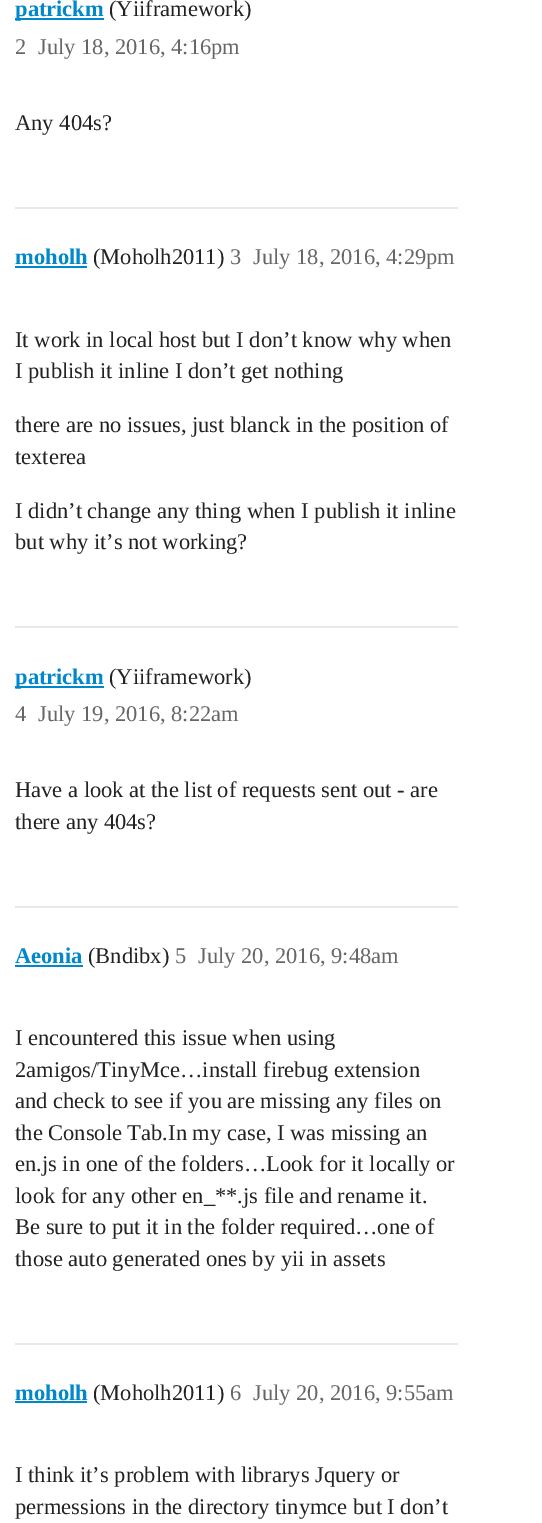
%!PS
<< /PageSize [542 1523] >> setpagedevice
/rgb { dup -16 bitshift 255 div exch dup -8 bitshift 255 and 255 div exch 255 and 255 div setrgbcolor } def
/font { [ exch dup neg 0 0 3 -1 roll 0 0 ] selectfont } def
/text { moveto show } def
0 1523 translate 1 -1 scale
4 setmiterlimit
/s1 { /LiberationSerif-Bold 22.5 font 16#0088CC rgb } def
/s2 { /LiberationSerif-Regular 22.5 font 16#222222 rgb } def
/s3 { /LiberationSerif-Regular 22.5 font 16#666666 rgb } def
16#FFFFFF rgb
0 0 542 1523 rectfill
16#0088CC rgb
15 18 89 2 rectfill
s1
(patrickm) 15 16 text
s2
(\(Yiiframework\)) 109 16 text
s3
(2) 15 54 text
(July 18, 2016, 4:16pm) 38 54 text
s2
(Any 404s?) 15 130 text
16#E9E9E9 rgb
15 207 443 2 rectfill
s1
(moholh) 15 264 text
15 266 72 2 rectfill
s2
(\(Moholh2011\)) 93 264 text
s3
(3) 230 264 text
(July 18, 2016, 4:29pm) 253 264 text
s2
(It work in local host but I don’t know why when) 15 347 text
(I publish it inline I don’t get nothing) 15 378 text
(there are no issues, just blanck in the position of) 15 432 text
(texterea) 15 464 text
(I didn’t change any thing when I publish it inline) 15 518 text
(but why it’s not working?) 15 549 text
16#E9E9E9 rgb
15 626 443 2 rectfill
16#0088CC rgb
15 686 89 2 rectfill
s1
(patrickm) 15 684 text
s2
(\(Yiiframework\)) 109 684 text
s3
(4) 15 721 text
(July 19, 2016, 8:22am) 38 721 text
s2
(Have a look at the list of requests sent out - are) 15 797 text
(there any 404s?) 15 829 text
16#E9E9E9 rgb
15 906 443 2 rectfill
s1
(Aeonia) 15 963 text
15 965 68 2 rectfill
s2
(\(Bndibx\)) 88 963 text
s3
(5) 175 963 text
(July 20, 2016, 9:48am) 198 963 text
s2
(I encountered this issue when using) 15 1045 text
(2amigos/TinyMce…install firebug extension) 15 1077 text
(and check to see if you are missing any files on) 15 1108 text
(the Console Tab.In my case, I was missing an) 15 1140 text
(en.js in one of the folders…Look for it locally or) 15 1171 text
(look for any other en_**.js file and rename it.) 15 1203 text
(Be sure to put it in the folder required…one of) 15 1234 text
(those auto generated ones by yii in assets) 15 1266 text
16#E9E9E9 rgb
15 1343 443 2 rectfill
s1
(moholh) 15 1400 text
15 1401 72 2 rectfill
s2
(\(Moholh2011\)) 93 1400 text
s3
(6) 230 1400 text
(July 20, 2016, 9:55am) 253 1400 text
s2
(I think it’s problem with librarys Jquery or) 15 1482 text
(permessions in the directory tinymce but I don’t) 15 1514 text
showpage
